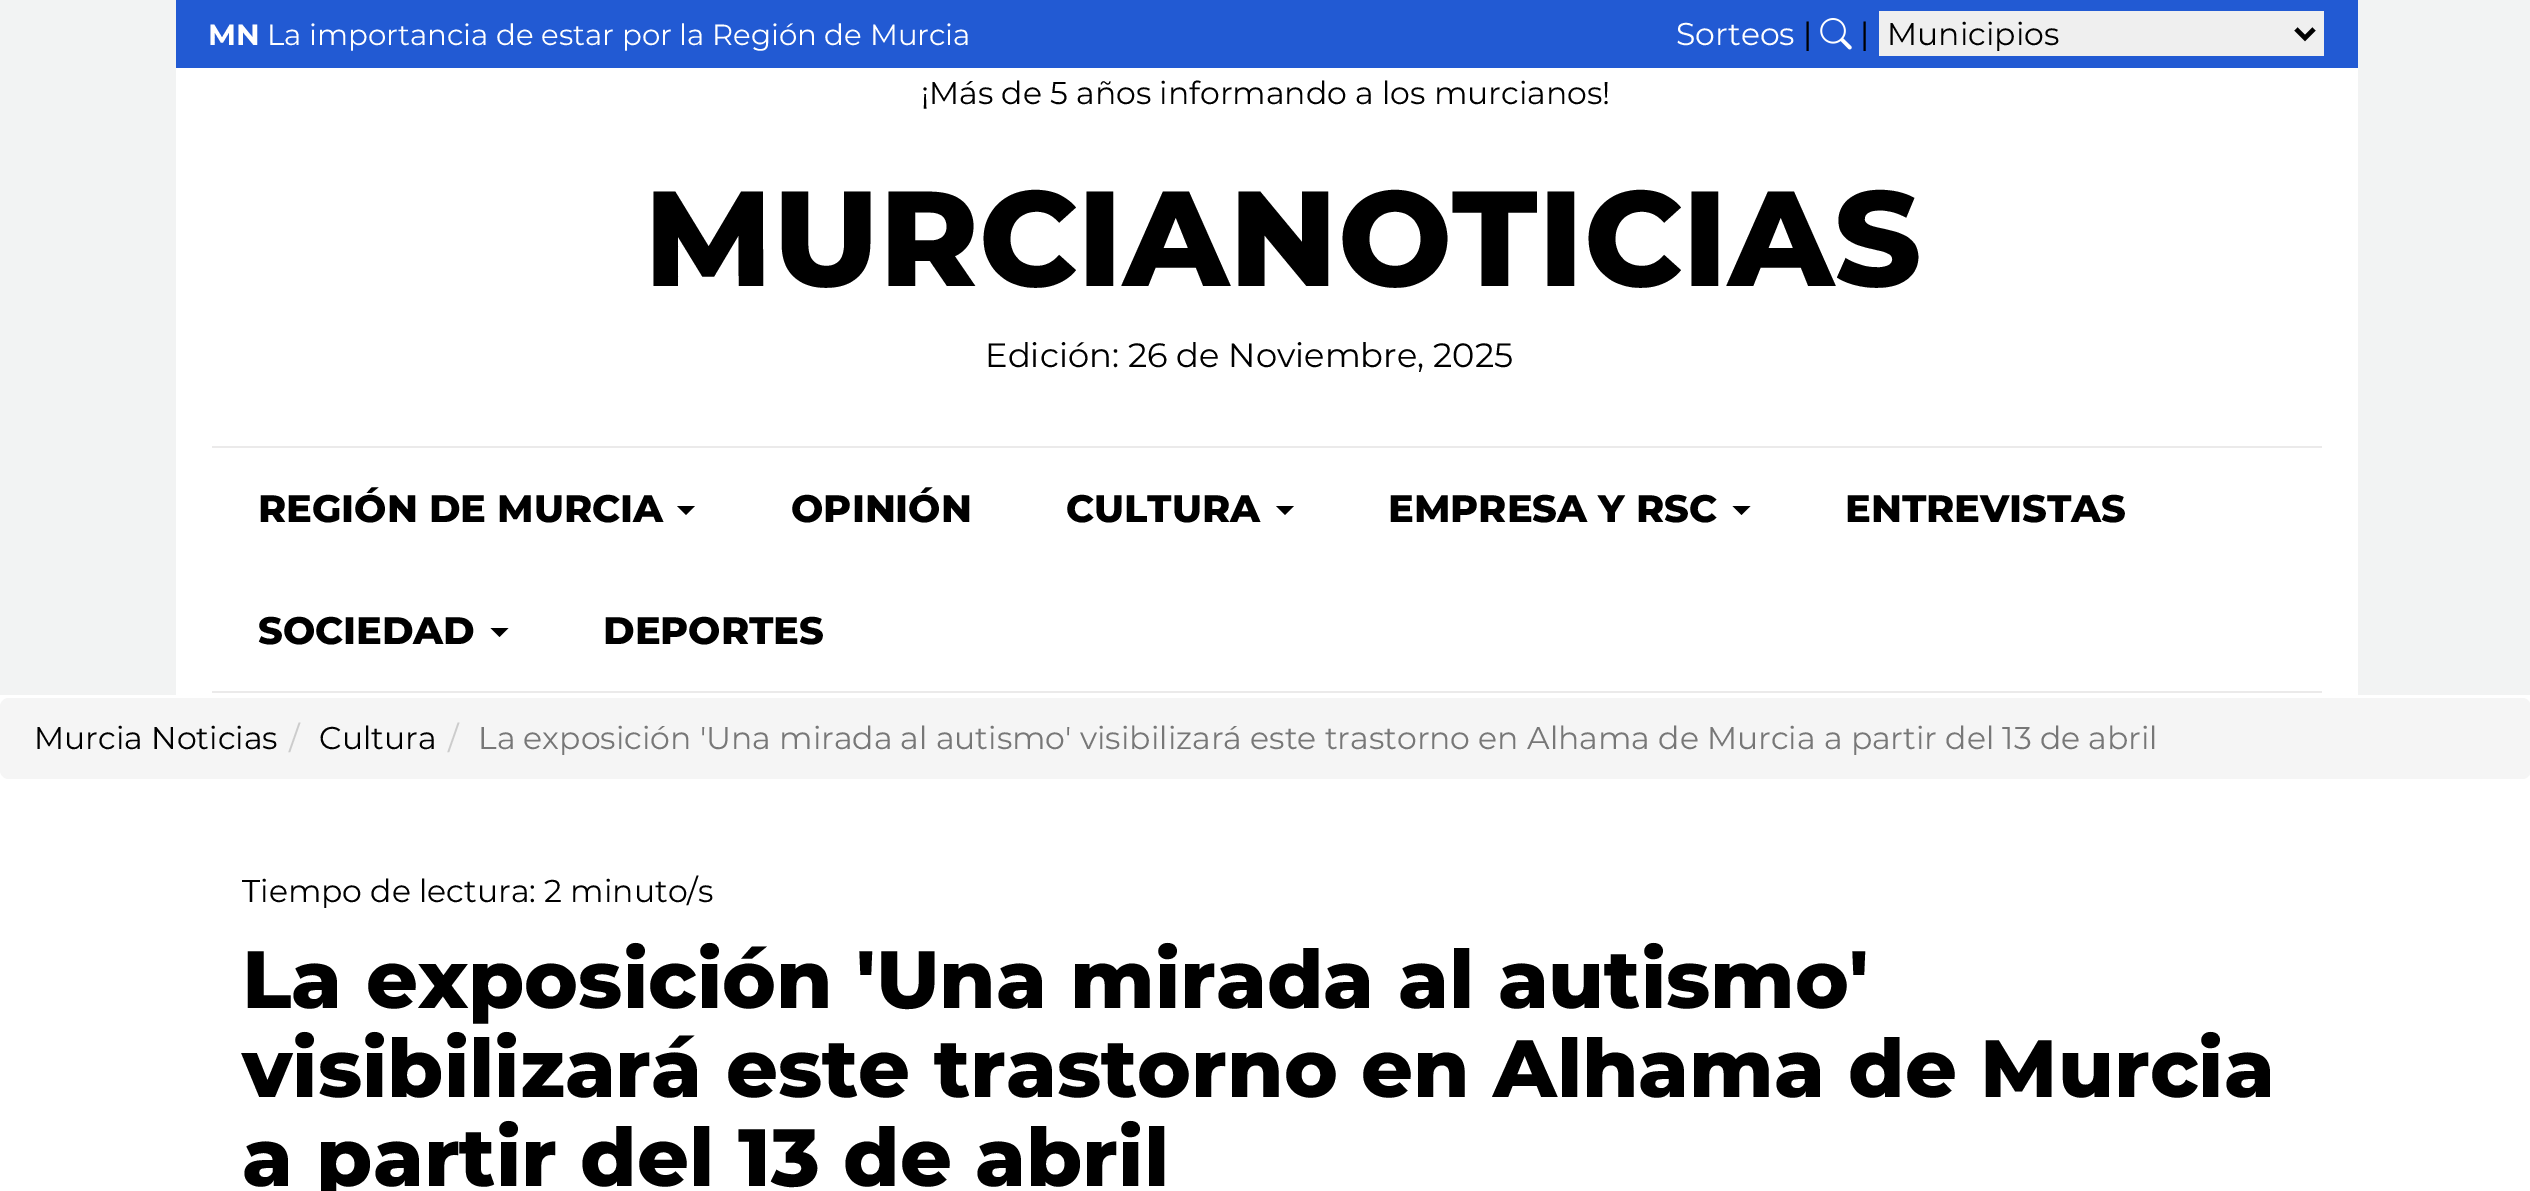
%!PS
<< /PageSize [2530 1191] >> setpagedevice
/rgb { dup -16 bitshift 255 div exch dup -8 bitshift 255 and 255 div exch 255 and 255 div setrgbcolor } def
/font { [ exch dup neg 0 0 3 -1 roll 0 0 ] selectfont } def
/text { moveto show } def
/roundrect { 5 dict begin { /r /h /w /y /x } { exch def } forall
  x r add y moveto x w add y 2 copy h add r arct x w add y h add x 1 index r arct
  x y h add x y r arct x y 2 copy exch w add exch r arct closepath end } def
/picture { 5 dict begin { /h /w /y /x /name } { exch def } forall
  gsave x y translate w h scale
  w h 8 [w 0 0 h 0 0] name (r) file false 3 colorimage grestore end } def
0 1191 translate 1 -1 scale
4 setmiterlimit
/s1 { /Montserrat-Bold 29.25 font 16#FFFFFF rgb } def
/s2 { /Montserrat-Thin 29.25 font 16#FFFFFF rgb } def
/s3 { /Montserrat-Thin 31.5 font 16#FFFFFF rgb } def
/s4 { /Montserrat-Thin 31.5 font 16#000000 rgb } def
/s5 { /Montserrat-ExtraBold 135 font 16#000000 rgb } def
/s6 { /Montserrat-Thin 33.75 font 16#000000 rgb } def
/s7 { /Montserrat-ExtraBold 38.25 font 16#000000 rgb } def
/s8 { /Montserrat-Thin 31.5 font 16#CCCCCC rgb } def
/s9 { /Montserrat-Thin 31.5 font 16#777777 rgb } def
/s10 { /Montserrat-ExtraBold 81 font 16#000000 rgb } def
16#F2F3F3 rgb
0 0 2530 1191 rectfill
16#225AD3 rgb
176 0 2182 68 rectfill
s1
(MN) 208 45 text
s2
(La importancia de estar por la Región de Murcia) 267 45 text
s3
(Sorteos) 1676 45 text
s4
(|) 1803 45 text
(pic1.raw) 1820 18 32 32 picture
(|) 1860 45 text
16#EFEFEF rgb
1879 11 445 45 rectfill
16#000000 rgb
4.5 setlinewidth
2296 29 moveto 2305 38 lineto 2314 29 lineto stroke
(Municipios) 1887 45 text
16#FFFFFF rgb
176 68 2182 627 rectfill
s4
(¡Más de 5 años informando a los murcianos!) 921 104 text
s5
(MURCIANOTICIAS) 644 286 text
s6
(Edición: 26 de Noviembre, 2025) 985 367 text
16#EBEAEA rgb
212 446 2110 2 rectfill
212 691 2110 2 rectfill
s7
(REGIÓN DE MURCIA) 258 522 text
677 506 moveto 695 506 lineto 686 515 lineto closepath fill
(OPINIÓN) 791 522 text
(CULTURA) 1066 522 text
1276 506 moveto 1294 506 lineto 1285 515 lineto closepath fill
(EMPRESA Y RSC) 1388 522 text
1732.5 506 moveto 1750.5 506 lineto 1741.5 515 lineto closepath fill
(ENTREVISTAS) 1845 522 text
(SOCIEDAD) 258 644 text
490.5 628 moveto 508.5 628 lineto 499.5 637 lineto closepath fill
(DEPORTES) 603 644 text
16#FFFFFF rgb
0 695 2530 496 rectfill
16#F5F5F5 rgb
0 698 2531 81 9 roundrect fill
s4
(Murcia Noticias) 34 749 text
s8
(/) 289 749 text
s4
(Cultura) 319 749 text
s8
(/) 448 749 text
s9
(La exposición 'Una mirada al autismo' visibilizará este trastorno en Alhama de Murcia a partir del 13 de abril) 478 749 text
s4
(Tiempo de lectura: 2 minuto/s) 242 902 text
s10
(La exposición 'Una mirada al autismo') 242 1008 text
(visibilizará este trastorno en Alhama de Murcia) 242 1097 text
(a partir del 13 de abril) 242 1186 text
showpage
